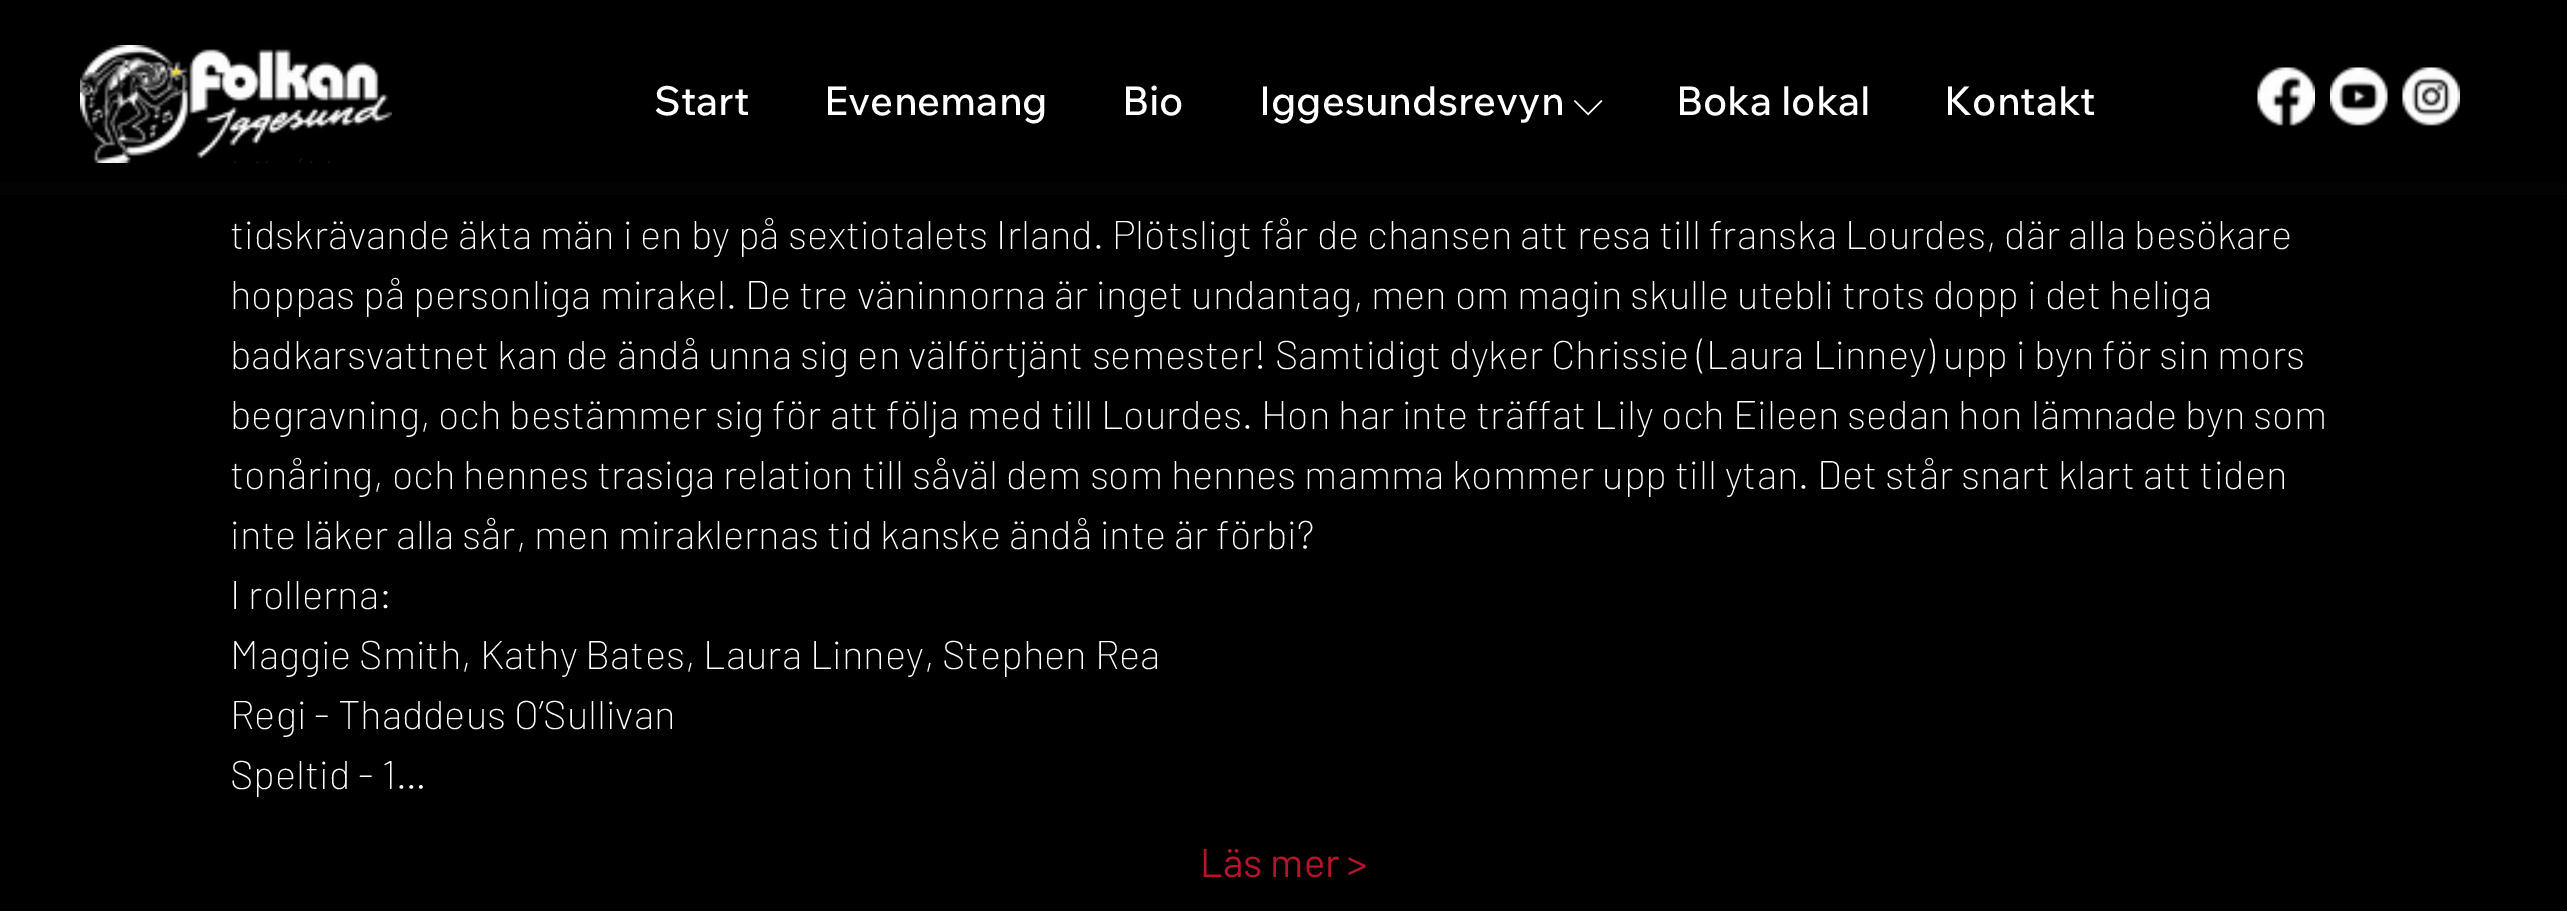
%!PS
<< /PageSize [2567 911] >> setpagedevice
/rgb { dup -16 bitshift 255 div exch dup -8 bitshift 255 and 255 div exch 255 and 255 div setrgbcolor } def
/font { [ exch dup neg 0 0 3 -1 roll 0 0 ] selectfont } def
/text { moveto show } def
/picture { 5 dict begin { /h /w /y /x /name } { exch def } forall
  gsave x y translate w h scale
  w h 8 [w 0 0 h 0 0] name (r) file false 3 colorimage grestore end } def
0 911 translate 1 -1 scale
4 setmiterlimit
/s1 { /WixMadeforText-Medium 40 font 16#FFFFFF rgb } def
/s2 { /FreeSerif-Regular 40 font 16#FFFFFF rgb } def
/s3 { /Barlow-ExtraLight 40 font 16#FFFFFF rgb } def
/s4 { /Barlow-Regular 40 font 16#B51429 rgb } def
16#000000 rgb
0 0 2567 911 rectfill
(pic1.raw) 80 45 312 118 picture
s1
(Start) 654 115 text
(Evenemang) 824 115 text
(Bio) 1122 115 text
(Iggesundsrevyn) 1259 115 text
s2
(⌵) 1573 115 text
s1
(Boka lokal) 1676 115 text
(Kontakt) 1944 115 text
(pic2.raw) 2257 67 58 59 picture
(pic3.raw) 2330 67 58 59 picture
(pic4.raw) 2402 67 58 59 picture
16#030303 rgb
0 183 2567 12 rectfill
s3
(tidskrävande äkta män i en by på sextiotalets Irland. Plötsligt får de chansen att resa till franska Lourdes, där alla besökare) 230 249 text
(hoppas på personliga mirakel. De tre väninnorna är inget undantag, men om magin skulle utebli trots dopp i det heliga) 230 309 text
(badkarsvattnet kan de ändå unna sig en välförtjänt semester! Samtidigt dyker Chrissie \(Laura Linney\) upp i byn för sin mors) 230 369 text
(begravning, och bestämmer sig för att följa med till Lourdes. Hon har inte träffat Lily och Eileen sedan hon lämnade byn som) 230 429 text
(tonåring, och hennes trasiga relation till såväl dem som hennes mamma kommer upp till ytan. Det står snart klart att tiden) 230 489 text
(inte läker alla sår, men miraklernas tid kanske ändå inte är förbi?) 230 549 text
(I rollerna:) 230 609 text
(Maggie Smith, Kathy Bates, Laura Linney, Stephen Rea) 230 669 text
(Regi - Thaddeus O’Sullivan) 230 729 text
(Speltid - 1…) 230 789 text
s4
(Läs mer >) 1200 877 text
showpage
